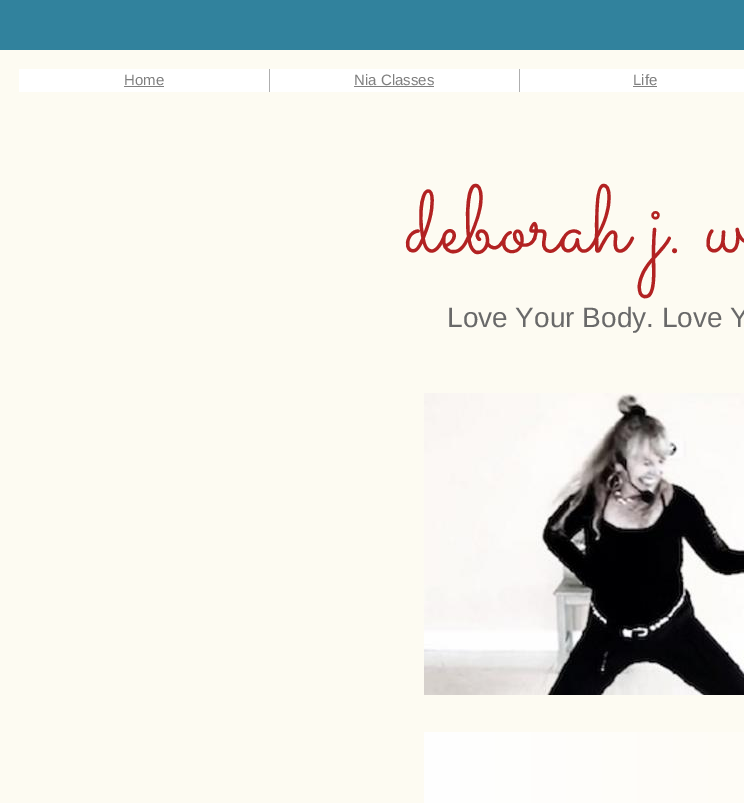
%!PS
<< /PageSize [744 803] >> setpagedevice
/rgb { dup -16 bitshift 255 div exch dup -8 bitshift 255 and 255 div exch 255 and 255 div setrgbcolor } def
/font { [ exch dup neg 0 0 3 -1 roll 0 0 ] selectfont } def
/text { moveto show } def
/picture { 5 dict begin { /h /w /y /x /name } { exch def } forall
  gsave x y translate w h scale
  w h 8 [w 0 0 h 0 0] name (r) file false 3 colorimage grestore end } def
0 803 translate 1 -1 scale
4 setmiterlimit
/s1 { /LiberationSans-Regular 15 font 16#7F7F7F rgb } def
/s2 { /Sacramento-Regular 96 font 16#B22222 rgb } def
/s3 { /LiberationSans-Regular 28 font 16#696969 rgb } def
16#FFFFFF rgb
0 0 744 803 rectfill
(pic1.raw) 0 0 744 50 picture
16#FDFBF2 rgb
0 50 744 753 rectfill
16#FFFFFF rgb
19 69 250 23 rectfill
16#AEAEAE rgb
269 69 1 23 rectfill
s1
(Home) 124 85 text
124 86 40 1 rectfill
16#FFFFFF rgb
270 69 249 23 rectfill
16#AEAEAE rgb
519 69 1 23 rectfill
s1
(Nia Classes) 354 85 text
354 86 80 1 rectfill
16#FFFFFF rgb
520 69 224 23 rectfill
s1
(Life) 633 85 text
633 86 24 1 rectfill
s2
(deborah j. w) 405 252 text
s3
(Love Your Body. Love Y) 447 327 text
(pic2.raw) 424 393 320 302 picture
gsave 424 732 moveto 744 732 lineto 744 803 lineto 424 803 lineto closepath clip newpath
<< /ShadingType 2 /ColorSpace /DeviceRGB /Coords [424 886 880 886] /Extend [true true] /Function << /FunctionType 2 /Domain [0 1] /C0 [1 1 1] /C1 [0.992 0.984 0.949] /N 1 >> >> shfill grestore
showpage
